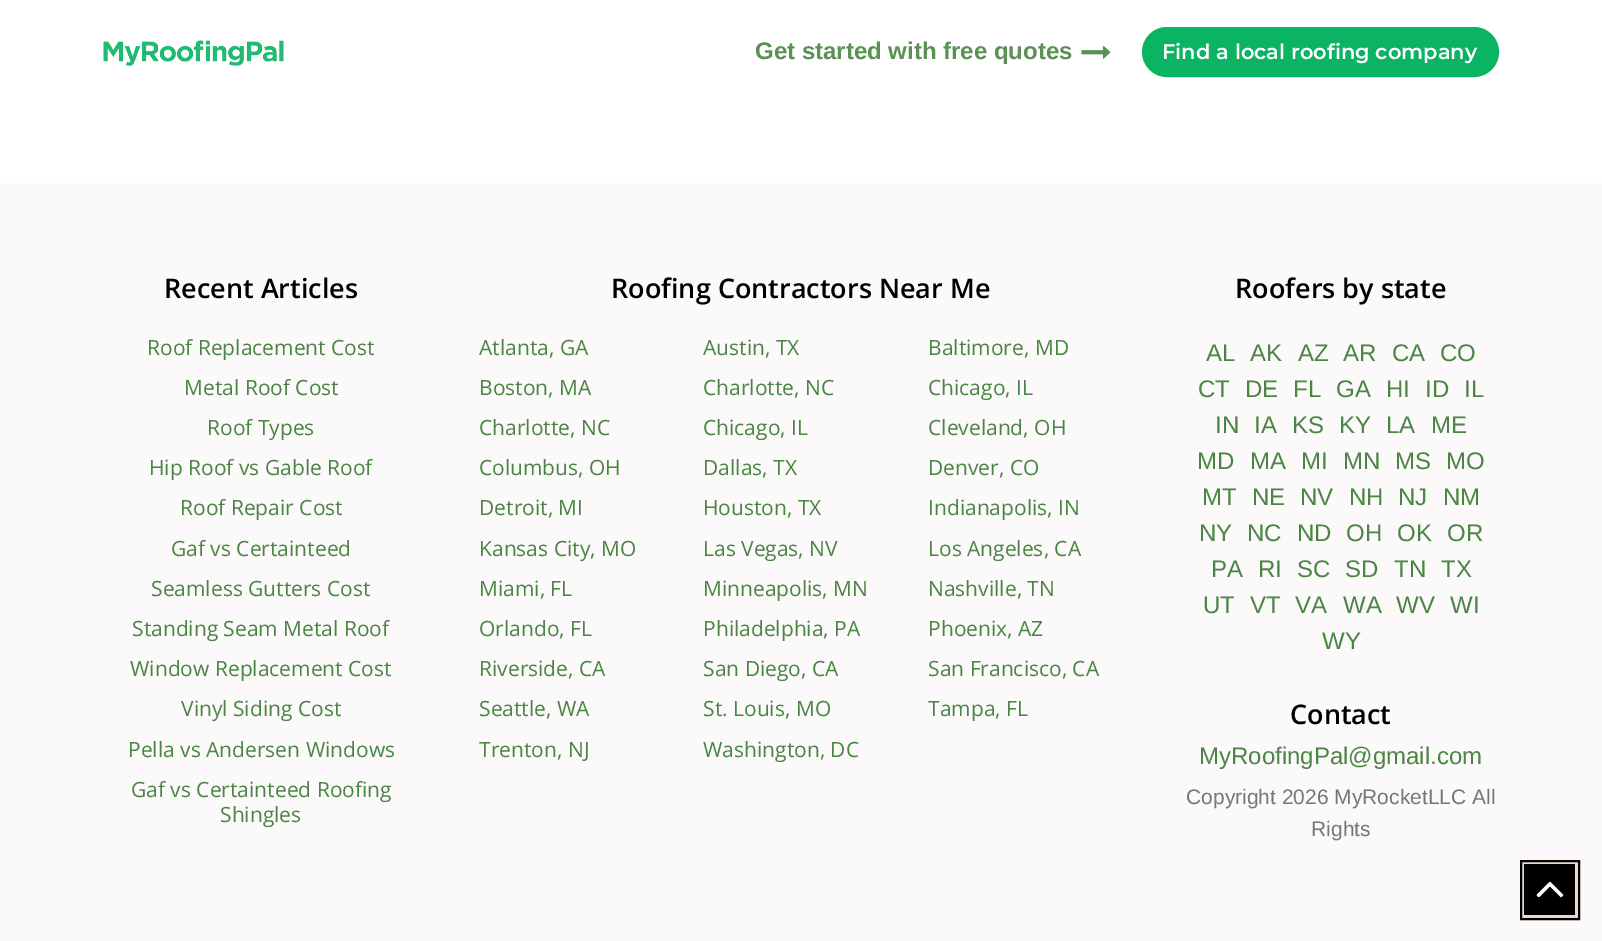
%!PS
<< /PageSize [1602 941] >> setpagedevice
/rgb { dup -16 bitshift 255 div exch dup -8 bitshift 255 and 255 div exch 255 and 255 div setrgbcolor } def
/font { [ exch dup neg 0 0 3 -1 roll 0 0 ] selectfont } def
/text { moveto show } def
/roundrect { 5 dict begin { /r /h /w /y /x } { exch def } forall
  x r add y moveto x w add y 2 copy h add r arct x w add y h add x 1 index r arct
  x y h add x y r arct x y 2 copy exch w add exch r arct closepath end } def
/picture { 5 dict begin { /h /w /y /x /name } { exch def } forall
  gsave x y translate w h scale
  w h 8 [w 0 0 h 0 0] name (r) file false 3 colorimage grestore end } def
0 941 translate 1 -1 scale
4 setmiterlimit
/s1 { /LiberationSans-Bold 24 font 16#5C9156 rgb } def
/s2 { /Montserrat-SemiBold 21 font 16#FFFFFF rgb } def
/s3 { /OpenSans-SemiBold 27 font 16#000000 rgb } def
/s4 { /OpenSans-Regular 21 font 16#4A8543 rgb } def
/s5 { /LiberationSans-Regular 24 font 16#4A8543 rgb } def
/s6 { /LiberationSans-Regular 21 font 16#777777 rgb } def
16#FFFFFF rgb
0 0 1602 941 rectfill
(pic1.raw) 103 40 181 26 picture
s1
(Get started with free quotes) 755 59 text
(pic2.raw) 1081 45 30 14 picture
16#0AB463 rgb
1143.5 28.5 354 47 23.5 roundrect gsave fill grestore
3 setlinewidth
stroke
s2
(Find a local roofing company) 1162 59 text
16#FBF9F9 rgb
0 183 1602 758 rectfill
s3
(Recent Articles) 164 298 text
s4
(Roof Replacement Cost) 147 355 text
(Metal Roof Cost) 184 395 text
(Roof Types) 207 435 text
(Hip Roof vs Gable Roof) 149 475 text
(Roof Repair Cost) 180 515 text
(Gaf vs Certainteed) 171 556 text
(Seamless Gutters Cost) 151 596 text
(Standing Seam Metal Roof) 132 636 text
(Window Replacement Cost) 130 676 text
(Vinyl Siding Cost) 181 716 text
(Pella vs Andersen Windows) 128 757 text
(Gaf vs Certainteed Roofing) 131 797 text
(Shingles) 220 822 text
s3
(Roofing Contractors Near Me) 611 298 text
s4
(Atlanta, GA) 479 355 text
(Austin, TX) 703 355 text
(Baltimore, MD) 928 355 text
(Boston, MA) 479 395 text
(Charlotte, NC) 703 395 text
(Chicago, IL) 928 395 text
(Charlotte, NC) 479 435 text
(Chicago, IL) 703 435 text
(Cleveland, OH) 928 435 text
(Columbus, OH) 479 475 text
(Dallas, TX) 703 475 text
(Denver, CO) 928 475 text
(Detroit, MI) 479 515 text
(Houston, TX) 703 515 text
(Indianapolis, IN) 928 515 text
(Kansas City, MO) 479 556 text
(Las Vegas, NV) 703 556 text
(Los Angeles, CA) 928 556 text
(Miami, FL) 479 596 text
(Minneapolis, MN) 703 596 text
(Nashville, TN) 928 596 text
(Orlando, FL) 479 636 text
(Philadelphia, PA) 703 636 text
(Phoenix, AZ) 928 636 text
(Riverside, CA) 479 676 text
(San Diego, CA) 703 676 text
(San Francisco, CA) 928 676 text
(Seattle, WA) 479 716 text
(St. Louis, MO) 703 716 text
(Tampa, FL) 928 716 text
(Trenton, NJ) 479 757 text
(Washington, DC) 703 757 text
s3
(Roofers by state) 1235 298 text
s5
(AL) 1206 361 text
(AK) 1250 361 text
(AZ) 1298 361 text
(AR) 1343 361 text
(CA) 1392 361 text
(CO) 1440 361 text
(CT) 1198 397 text
(DE) 1245 397 text
(FL) 1293 397 text
(GA) 1336 397 text
(HI) 1386 397 text
(ID) 1425 397 text
(IL) 1464 397 text
(IN) 1215 433 text
(IA) 1254 433 text
(KS) 1292 433 text
(KY) 1339 433 text
(LA) 1386 433 text
(ME) 1431 433 text
(MD) 1197 469 text
(MA) 1250 469 text
(MI) 1301 469 text
(MN) 1343 469 text
(MS) 1395 469 text
(MO) 1446 469 text
(MT) 1202 505 text
(NE) 1252 505 text
(NV) 1300 505 text
(NH) 1349 505 text
(NJ) 1398 505 text
(NM) 1443 505 text
(NY) 1199 541 text
(NC) 1247 541 text
(ND) 1297 541 text
(OH) 1346 541 text
(OK) 1397 541 text
(OR) 1447 541 text
(PA) 1211 577 text
(RI) 1258 577 text
(SC) 1297 577 text
(SD) 1345 577 text
(TN) 1394 577 text
(TX) 1441 577 text
(UT) 1203 613 text
(VT) 1250 613 text
(VA) 1295 613 text
(WA) 1343 613 text
(WV) 1396 613 text
(WI) 1450 613 text
(WY) 1322 649 text
s3
(Contact) 1290 724 text
s5
(MyRoofingPal@gmail.com) 1199 764 text
s6
(Copyright 2026 MyRocketLLC All) 1186 804 text
(Rights) 1311 836 text
16#EADAC9 rgb
1521 861 moveto 1579 861 lineto 1579 919 lineto 1521 919 lineto closepath gsave fill grestore
16#000000 rgb
2 setlinewidth
stroke
1524 864 51 51 rectfill
(pic3.raw) 1536 881 28 17 picture
showpage
